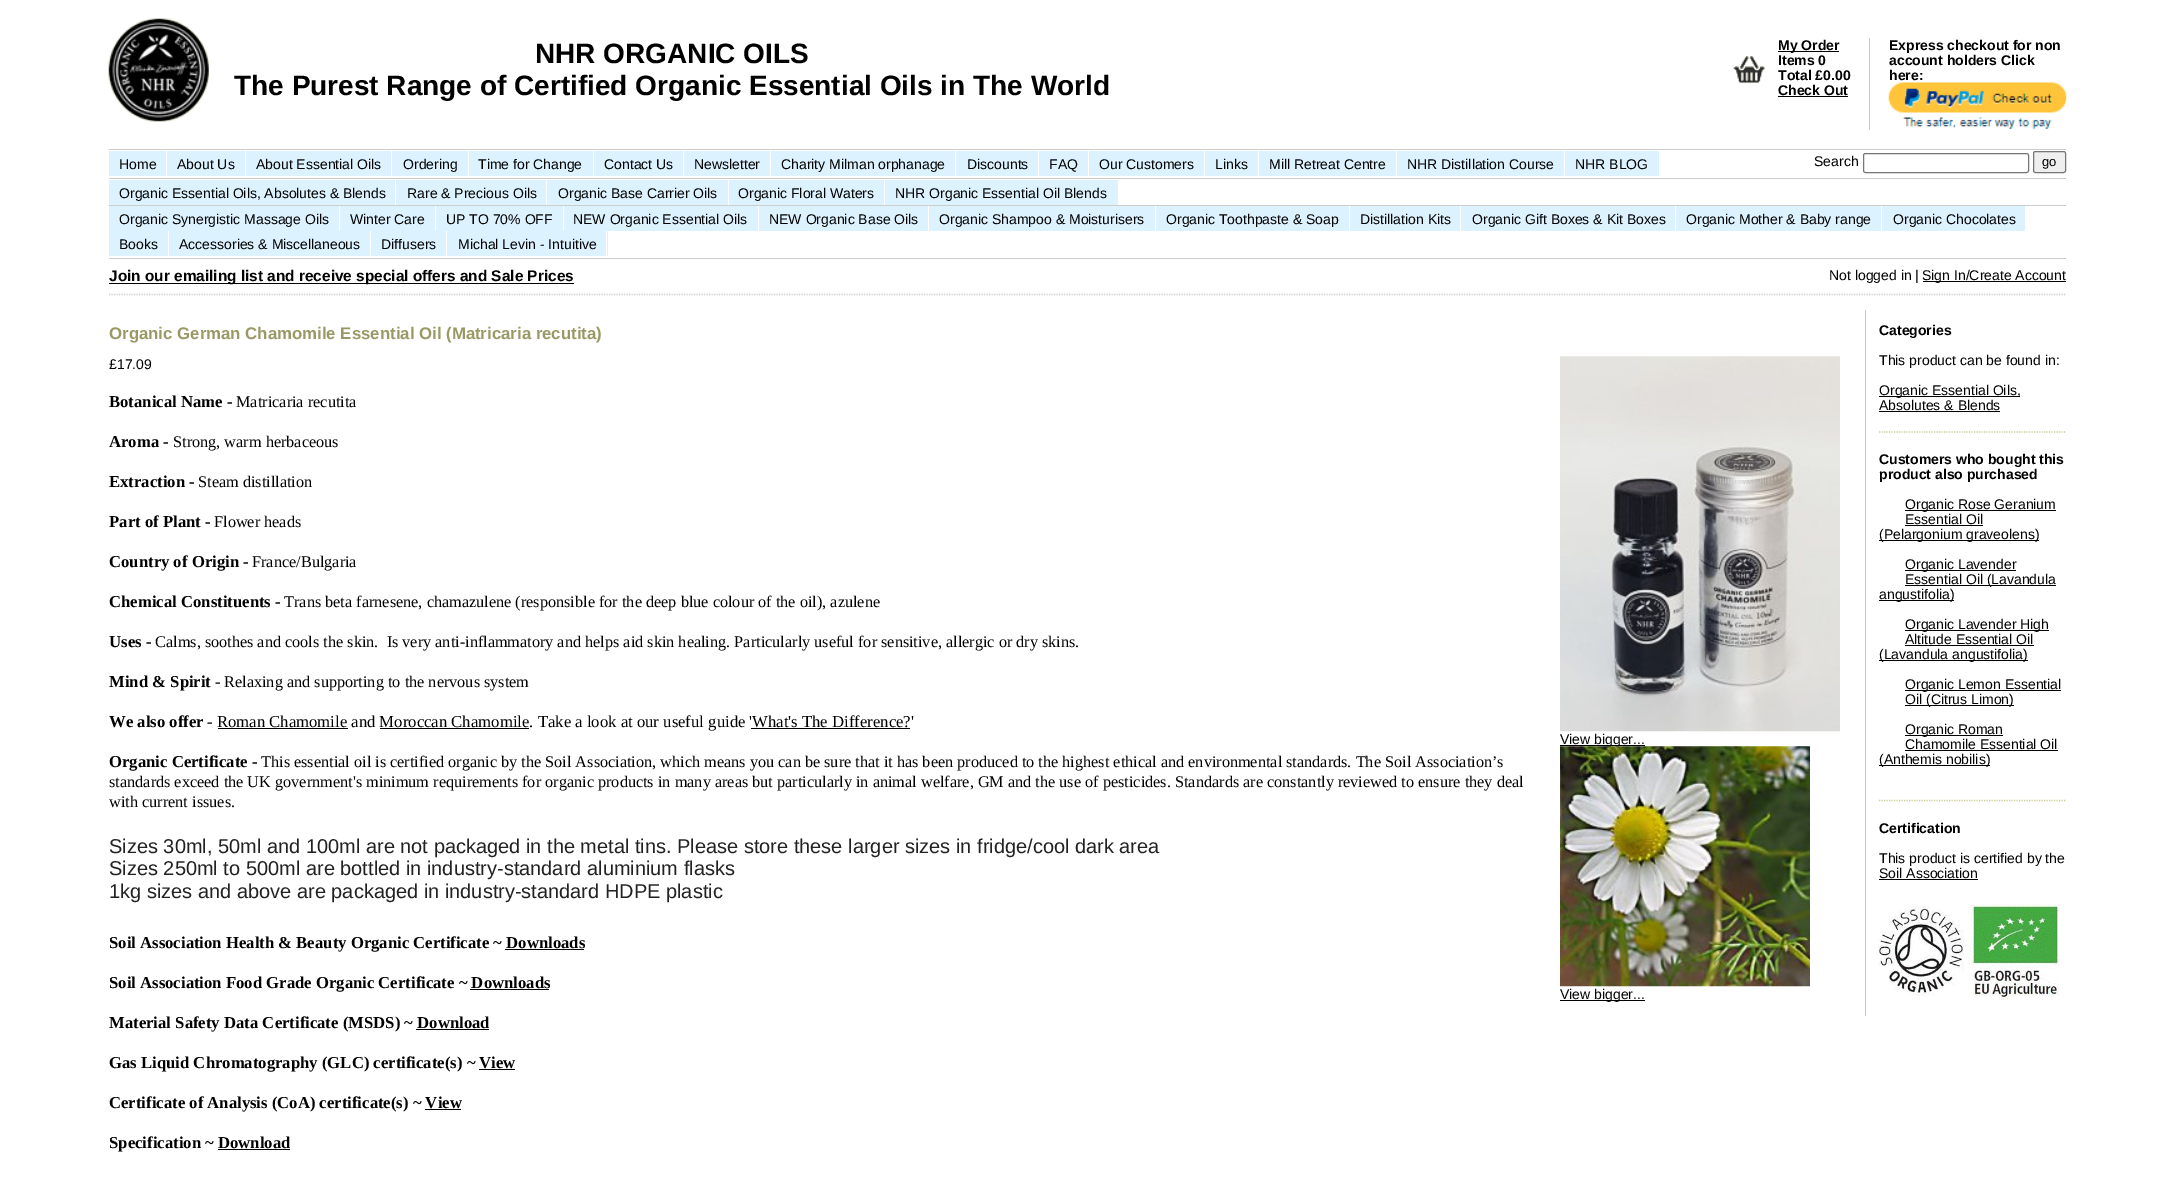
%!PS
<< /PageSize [2174 1182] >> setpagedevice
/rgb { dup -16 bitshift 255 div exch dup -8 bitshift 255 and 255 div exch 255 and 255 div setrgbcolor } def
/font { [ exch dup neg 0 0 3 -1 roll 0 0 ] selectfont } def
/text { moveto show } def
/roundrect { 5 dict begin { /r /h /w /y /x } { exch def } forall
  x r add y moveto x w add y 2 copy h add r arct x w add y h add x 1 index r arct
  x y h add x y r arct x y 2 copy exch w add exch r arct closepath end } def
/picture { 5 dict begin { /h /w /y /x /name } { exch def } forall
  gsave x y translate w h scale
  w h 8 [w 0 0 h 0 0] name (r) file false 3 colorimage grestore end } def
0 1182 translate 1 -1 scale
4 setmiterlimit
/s1 { /LiberationSans-Bold 28 font 16#000000 rgb } def
/s2 { /LiberationSans-Bold 14 font 16#000000 rgb } def
/s3 { /LiberationSans-Regular 14 font 16#000000 rgb } def
/s4 { /LiberationSans-Regular 13 font 16#000000 rgb } def
/s5 { /LiberationSans-Bold 15.4 font 16#000000 rgb } def
/s6 { /LiberationSans-Bold 16.8 font 16#999966 rgb } def
/s7 { /LiberationSerif-Bold 16.7 font 16#000000 rgb } def
/s8 { /LiberationSerif-Regular 16.25 font 16#000000 rgb } def
/s9 { /LiberationSerif-Regular 16.7 font 16#000000 rgb } def
/s10 { /LiberationSans-Regular 20 font 16#222222 rgb } def
16#FFFFFF rgb
0 0 2174 1182 rectfill
(pic1.raw) 108 18 101 104 picture
s1
(NHR ORGANIC OILS) 535 63 text
(The Purest Range of Certified Organic Essential Oils in The World) 234 95 text
(pic2.raw) 1733 56 32 28 picture
1778 51 61 1 rectfill
s2
(My Order) 1778 50 text
(Items 0) 1778 65 text
(Total £0.00) 1778 80 text
(Check Out) 1778 95 text
1778 96 70 1 rectfill
16#CCCCCC rgb
1869 38 1 92 rectfill
s2
(Express checkout for non) 1889 50 text
(account holders Click) 1889 65 text
(here:) 1889 80 text
(pic3.raw) 1888 82 179 47 picture
16#CCCCCC rgb
109 149 1957 1 rectfill
109 178 1957 1 rectfill
16#DCF2FF rgb
109 151 136 25 rectfill
16#FFFFFF rgb
166 151 1 25 rectfill
s3
(Home) 119 169 text
(About Us) 177 169 text
16#DCF2FF rgb
246 151 222 25 rectfill
16#FFFFFF rgb
391 151 1 25 rectfill
s3
(About Essential Oils) 256 169 text
(Ordering) 403 169 text
16#DCF2FF rgb
469 151 124 25 rectfill
s3
(Time for Change) 478 169 text
16#DCF2FF rgb
594 151 89 25 rectfill
s3
(Contact Us) 604 169 text
16#DCF2FF rgb
684 151 86 25 rectfill
s3
(Newsletter) 694 169 text
16#DCF2FF rgb
771 151 184 25 rectfill
s3
(Charity Milman orphanage) 781 169 text
16#DCF2FF rgb
956 151 82 25 rectfill
s3
(Discounts) 967 169 text
16#DCF2FF rgb
1039 151 49 25 rectfill
s3
(FAQ) 1049 169 text
16#DCF2FF rgb
1089 151 115 25 rectfill
s3
(Our Customers) 1099 169 text
16#DCF2FF rgb
1205 151 53 25 rectfill
s3
(Links) 1215 169 text
16#DCF2FF rgb
1259 151 305 25 rectfill
16#FFFFFF rgb
1396 151 1 25 rectfill
s3
(Mill Retreat Centre) 1269 169 text
(NHR Distillation Course) 1407 169 text
16#DCF2FF rgb
1565 151 94 25 rectfill
s3
(NHR BLOG) 1575 169 text
(Search) 1814 166 text
16#767676 rgb
1863.5 153.5 165 19 2 roundrect stroke
16#EFEFEF rgb
2033.5 151.5 32 21 2 roundrect gsave fill grestore
16#767676 rgb
stroke
s4
(go) 2042 166 text
16#CCCCCC rgb
109 258 1957 1 rectfill
16#DCF2FF rgb
109 180 286 25 rectfill
s3
(Organic Essential Oils, Absolutes & Blends) 119 198 text
16#DCF2FF rgb
396 180 332 25 rectfill
16#FFFFFF rgb
546 180 1 25 rectfill
s3
(Rare & Precious Oils) 407 198 text
(Organic Base Carrier Oils) 558 198 text
16#DCF2FF rgb
729 180 155 25 rectfill
s3
(Organic Floral Waters) 738 198 text
16#DCF2FF rgb
885 180 233 25 rectfill
s3
(NHR Organic Essential Oil Blends) 895 198 text
16#CCCCCC rgb
109 205 1957 1 rectfill
16#DCF2FF rgb
109 206 230 25 rectfill
s3
(Organic Synergistic Massage Oils) 119 224 text
16#DCF2FF rgb
340 206 95 25 rectfill
s3
(Winter Care) 350 224 text
16#DCF2FF rgb
436 206 127 25 rectfill
s3
(UP TO 70% OFF) 446 224 text
16#DCF2FF rgb
564 206 194 25 rectfill
s3
(NEW Organic Essential Oils) 573 224 text
16#DCF2FF rgb
759 206 169 25 rectfill
s3
(NEW Organic Base Oils) 769 224 text
16#DCF2FF rgb
929 206 226 25 rectfill
s3
(Organic Shampoo & Moisturisers) 939 224 text
16#DCF2FF rgb
1156 206 193 25 rectfill
s3
(Organic Toothpaste & Soap) 1166 224 text
16#DCF2FF rgb
1350 206 110 25 rectfill
s3
(Distillation Kits) 1360 224 text
16#DCF2FF rgb
1461 206 214 25 rectfill
s3
(Organic Gift Boxes & Kit Boxes) 1472 224 text
16#DCF2FF rgb
1676 206 349 25 rectfill
16#FFFFFF rgb
1881 206 1 25 rectfill
s3
(Organic Mother & Baby range) 1686 224 text
(Organic Chocolates) 1893 224 text
16#DCF2FF rgb
109 231 59 25 rectfill
s3
(Books) 119 249 text
16#DCF2FF rgb
169 231 201 25 rectfill
s3
(Accessories & Miscellaneous) 179 249 text
16#DCF2FF rgb
371 231 237 25 rectfill
16#FFFFFF rgb
446 231 1 25 rectfill
s3
(Diffusers) 381 249 text
16#FFFFFF rgb
606 231 1 25 rectfill
s3
(Michal Levin - Intuitive) 458 249 text
16#CCCCCC rgb
1.2 setlinewidth
[1.25 1.25] 0 setdash
109 294.5 moveto 2066 294.5 lineto stroke
16#000000 rgb
109 283 465 1 rectfill
s5
(Join our emailing list and receive special offers and Sale Prices) 109 281 text
s3
(Not logged in |) 1829 280 text
1923 281 143 1 rectfill
(Sign In/Create Account) 1922 280 text
s6
(Organic German Chamomile Essential Oil \(Matricaria recutita\)) 109 339 text
16#CCCC99 rgb
1865 310 1 706 rectfill
s2
(Categories) 1879 335 text
s3
(This product can be found in:) 1879 365 text
1879 396 141 1 rectfill
(Organic Essential Oils,) 1879 395 text
(Absolutes & Blends) 1879 410 text
1879 411 121 1 rectfill
16#CCCC99 rgb
1879 432 moveto 2066 432 lineto stroke
s2
(Customers who bought this) 1879 464 text
(product also purchased) 1879 479 text
1905 510 151 1 rectfill
s3
(Organic Rose Geranium) 1905 509 text
(Essential Oil) 1905 524 text
1905 525 78 1 rectfill
1879 540 160 1 rectfill
(\(Pelargonium graveolens\)) 1879 539 text
1905 570 111 1 rectfill
(Organic Lavender) 1905 569 text
1905 585 151 1 rectfill
(Essential Oil \(Lavandula) 1905 584 text
1879 600 75 1 rectfill
(angustifolia\)) 1879 599 text
1905 630 144 1 rectfill
(Organic Lavender High) 1905 629 text
(Altitude Essential Oil) 1905 644 text
1905 645 129 1 rectfill
1879 660 149 1 rectfill
(\(Lavandula angustifolia\)) 1879 659 text
1905 690 156 1 rectfill
(Organic Lemon Essential) 1905 689 text
1905 705 109 1 rectfill
(Oil \(Citrus Limon\)) 1905 704 text
1905 735 98 1 rectfill
(Organic Roman) 1905 734 text
(Chamomile Essential Oil) 1905 749 text
1905 750 153 1 rectfill
1879 765 111 1 rectfill
(\(Anthemis nobilis\)) 1879 764 text
16#CCCC99 rgb
1879 800.5 moveto 2066 800.5 lineto stroke
s2
(Certification) 1879 833 text
s3
(This product is certified by the) 1879 863 text
(Soil Association) 1879 878 text
1879 879 99 1 rectfill
(pic4.raw) 1878 904 182 96 picture
(£17.09) 109 369 text
s7
(Botanical Name -) 109 407 text
s8
(Matricaria recutita) 236 407 text
s7
(Aroma -) 109 447 text
s8
(Strong, warm herbaceous) 173 447 text
s7
(Extraction -) 109 487 text
s8
(Steam distillation) 198 487 text
s7
(Part of Plant -) 109 527 text
s8
(Flower heads) 214 527 text
s7
(Country of Origin -) 109 567 text
s8
(France/Bulgaria) 252 567 text
s7
(Chemical Constituents -) 109 607 text
s8
(Trans beta farnesene, chamazulene \(responsible for the deep blue colour of the oil\), azulene) 284 607 text
s7
(Uses -) 109 647 text
s8
(Calms, soothes and cools the skin.  Is very anti-inflammatory and helps aid skin healing. Particularly useful for sensitive, allergic or dry skins.) 155 647 text
s7
(Mind & Spirit) 109 687 text
s9
(-) 215 687 text
s8
(Relaxing and supporting to the nervous system) 224 687 text
s7
(We also offer) 109 727 text
s9
(- Roman Chamomile and Moroccan Chamomile. Take a look at our useful guide ') 207 727 text
218 728 130 1 rectfill
380 728 149 1 rectfill
16#FFFFFF rgb
751 716 1 1 rectfill
s9
(What's The Difference?') 752 727 text
751 728 159 1 rectfill
s7
(Organic Certificate -) 109 767 text
s8
(This essential oil is certified organic by the Soil Association, which means you can be sure that it has been produced to the highest ethical and environmental standards. The Soil Association’s) 261 767 text
(standards exceed the UK government's minimum requirements for organic products in many areas but particularly in animal welfare, GM and the use of pesticides. Standards are constantly reviewed to ensure they deal) 109 787 text
(with current issues.) 109 807 text
s10
(Sizes 30ml, 50ml and 100ml are not packaged in the metal tins. Please store these larger sizes in fridge/cool dark area) 109 853 text
(Sizes 250ml to 500ml are bottled in industry-standard aluminium flasks) 109 875 text
(1kg sizes and above are packaged in industry-standard HDPE plastic) 109 898 text
(pic5.raw) 1560 356 280 376 picture
16#000000 rgb
1560 745 85 1 rectfill
s3
(View bigger...) 1560 744 text
(pic6.raw) 1560 746 250 241 picture
1560 1000 85 1 rectfill
(View bigger...) 1560 999 text
s7
(Soil Association Health & Beauty Organic Certificate ~ Downloads) 109 948 text
505 949 79 1 rectfill
(Soil Association Food Grade Organic Certificate ~ Downloads) 109 988 text
470 989 79 1 rectfill
(Material Safety Data Certificate \(MSDS\) ~ Download) 109 1028 text
416 1029 73 1 rectfill
(Gas Liquid Chromatography \(GLC\) certificate\(s\) ~ View) 109 1068 text
479 1069 36 1 rectfill
(Certificate of Analysis \(CoA\) certificate\(s\) ~ View) 109 1108 text
425 1109 36 1 rectfill
(Specification ~ Download) 109 1148 text
218 1149 72 1 rectfill
showpage
